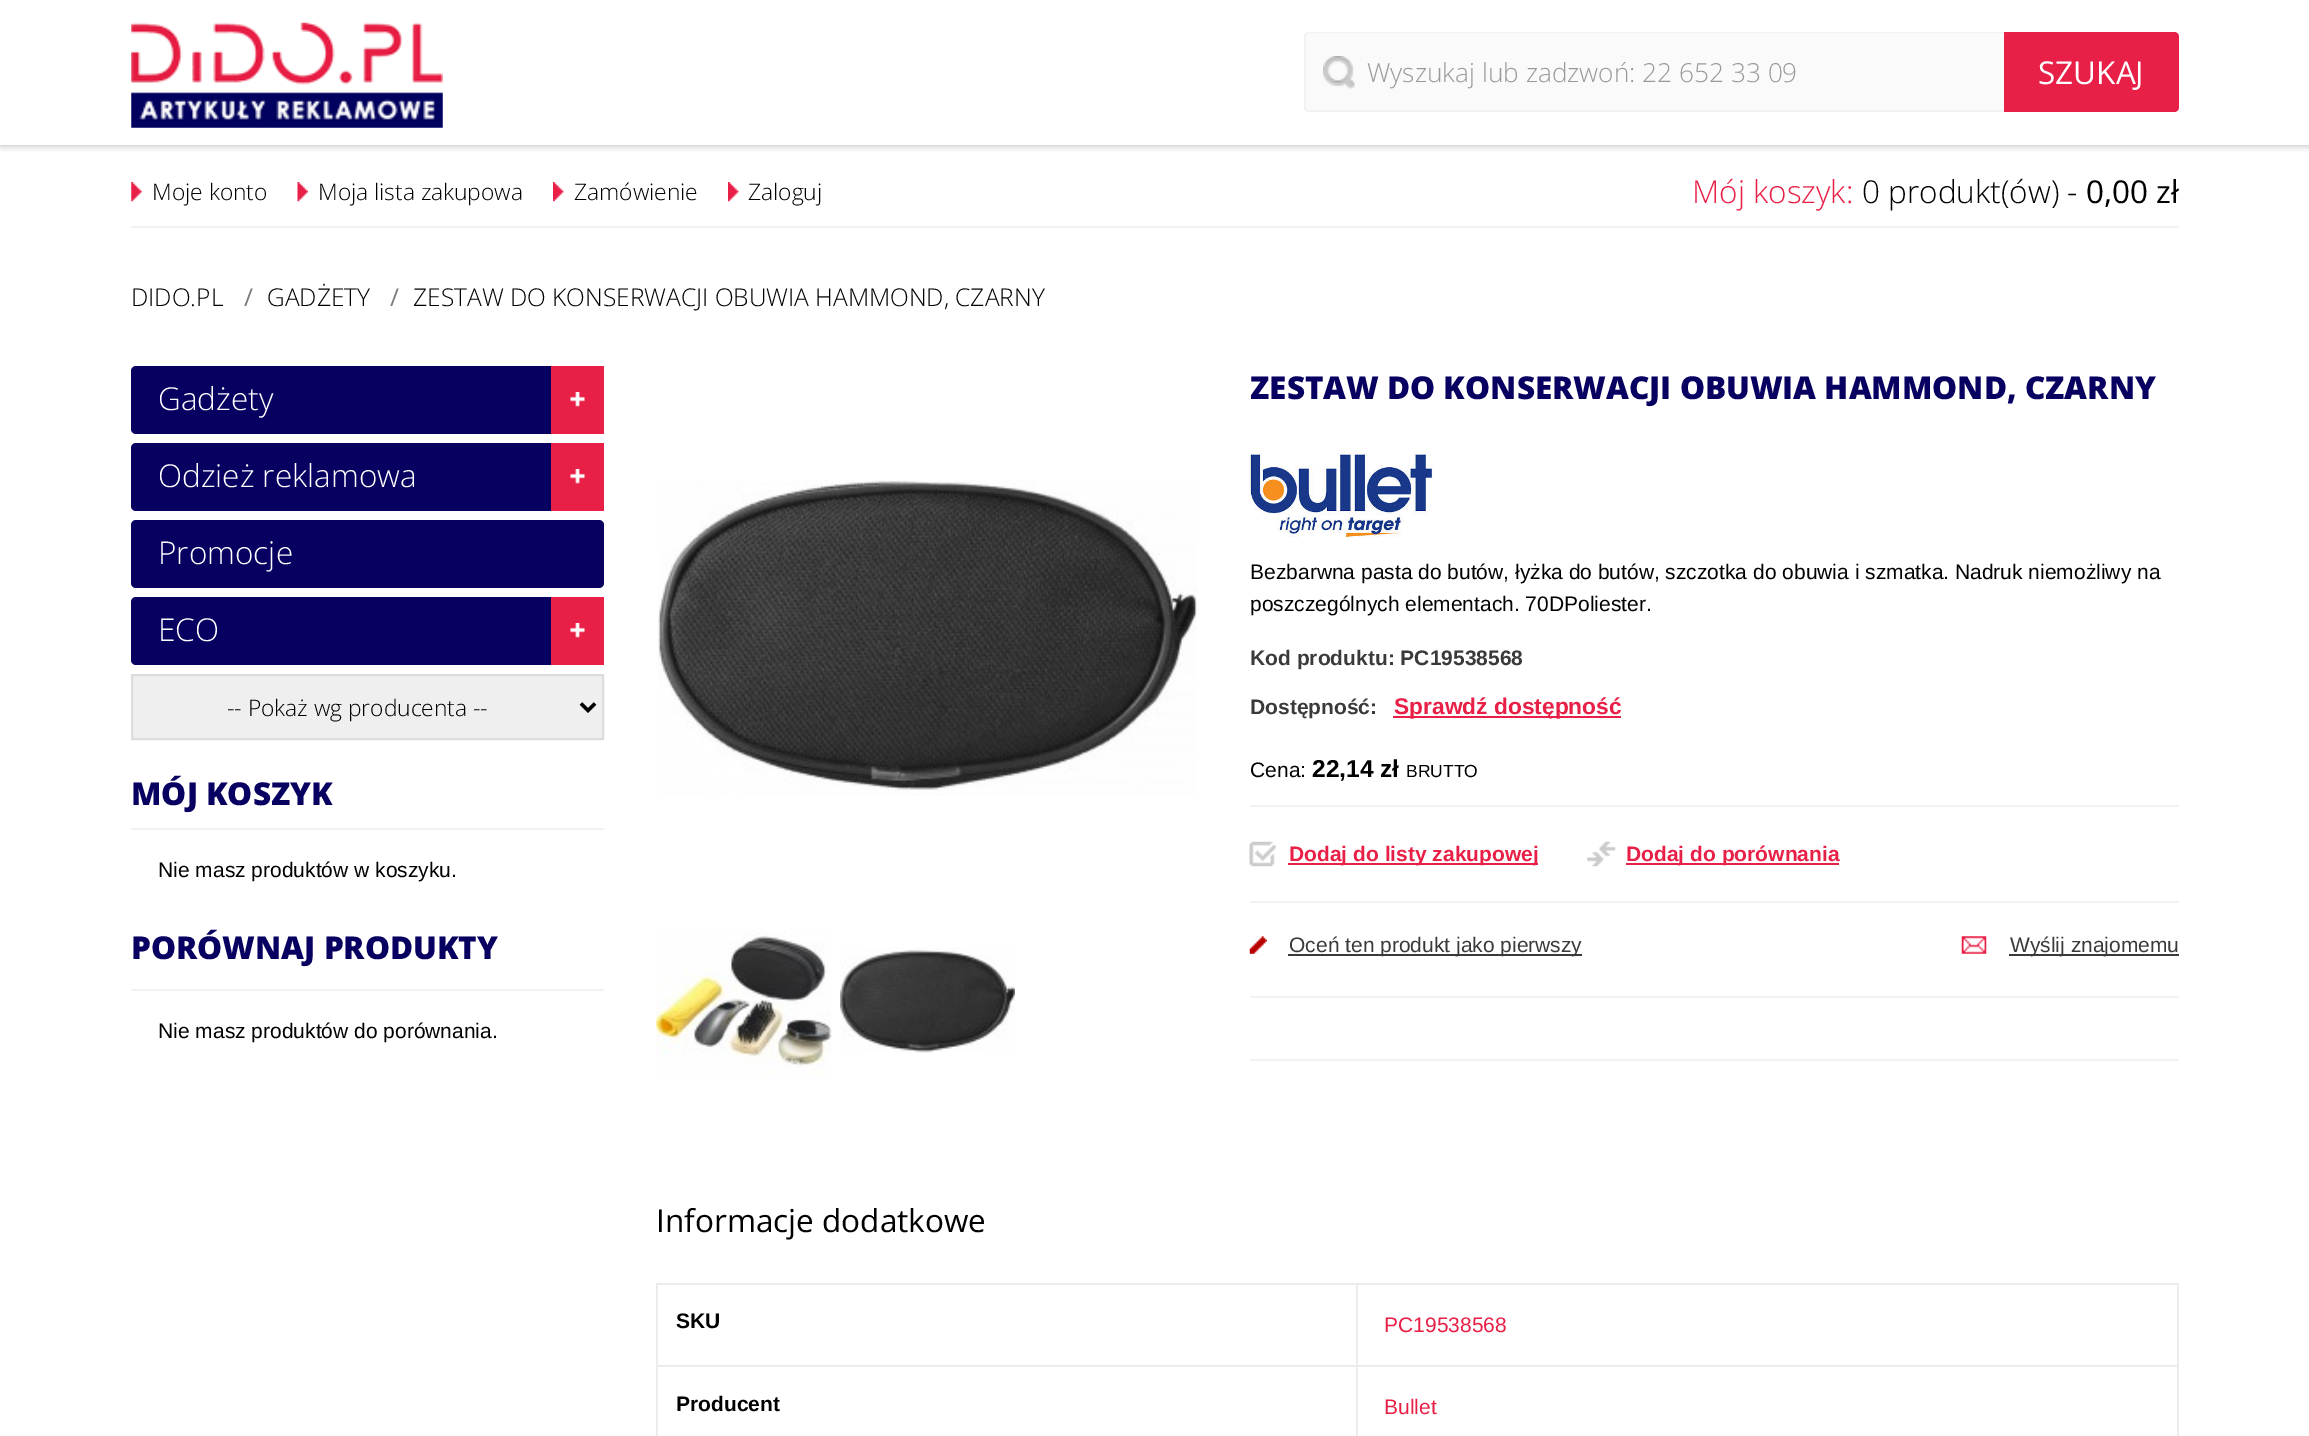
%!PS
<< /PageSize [2309 1436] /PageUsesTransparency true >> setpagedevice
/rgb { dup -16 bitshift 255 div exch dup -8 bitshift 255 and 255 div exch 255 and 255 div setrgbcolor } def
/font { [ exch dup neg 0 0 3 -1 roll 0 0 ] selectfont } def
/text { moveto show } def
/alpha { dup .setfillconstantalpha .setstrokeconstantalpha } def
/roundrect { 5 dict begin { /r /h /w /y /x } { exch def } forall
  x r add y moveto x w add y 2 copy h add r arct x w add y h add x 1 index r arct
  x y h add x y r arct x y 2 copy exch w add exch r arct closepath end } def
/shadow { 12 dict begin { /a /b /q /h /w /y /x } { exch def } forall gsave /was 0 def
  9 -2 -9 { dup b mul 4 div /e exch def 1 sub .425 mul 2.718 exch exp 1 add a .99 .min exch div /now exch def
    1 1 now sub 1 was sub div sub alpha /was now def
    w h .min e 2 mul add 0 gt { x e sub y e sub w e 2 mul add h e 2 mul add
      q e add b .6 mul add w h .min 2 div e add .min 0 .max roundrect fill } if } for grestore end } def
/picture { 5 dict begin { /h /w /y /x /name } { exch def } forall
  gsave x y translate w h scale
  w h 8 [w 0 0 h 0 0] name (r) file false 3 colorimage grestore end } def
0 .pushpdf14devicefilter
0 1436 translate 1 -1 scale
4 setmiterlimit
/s1 { /OpenSans-Light 26.25 font 16#999999 rgb } def
/s2 { /OpenSans-Regular 31.5 font 16#FFFFFF rgb } def
/s3 { /OpenSans-Light 22.75 font 16#000000 rgb } def
/s4 { /OpenSans-Light 31.5 font 16#E81F46 rgb } def
/s5 { /OpenSans-Light 31.5 font 16#000000 rgb } def
/s6 { /OpenSans-Regular 31.5 font 16#000000 rgb } def
/s7 { /OpenSans-Light 24.5 font 16#000000 rgb } def
/s8 { /OpenSans-Regular 24.5 font 16#7B7B7B rgb } def
/s9 { /OpenSans-Light 31.5 font 16#FFFFFF rgb } def
/s10 { /OpenSans-ExtraBold 31.5 font 16#070060 rgb } def
/s11 { /LiberationSans-Regular 21 font 16#000000 rgb } def
/s12 { /LiberationSans-Bold 21 font 16#3A3A3A rgb } def
/s13 { /LiberationSans-Bold 22.75 font 16#E81F46 rgb } def
/s14 { /LiberationSans-Bold 24.5 font 16#000000 rgb } def
/s15 { /LiberationSans-Regular 17.5 font 16#000000 rgb } def
/s16 { /LiberationSans-Bold 21 font 16#E81F46 rgb } def
/s17 { /LiberationSans-Regular 21 font 16#3A3A3A rgb } def
/s18 { /LiberationSans-Bold 21 font 16#000000 rgb } def
/s19 { /LiberationSans-Regular 21 font 16#E81F46 rgb } def
16#FFFFFF rgb
0 0 2309 1436 rectfill
gsave
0 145 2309 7 rectclip
16#000000 rgb
0 0 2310 145 0 4.5 0.3 shadow
grestore
(pic1.raw) 131 22 312 106 picture
16#FAFAFA rgb
1309 32 moveto 2004 32 lineto 2004 112 lineto 1309 112 lineto 1306 112 1304 110 1304 107 curveto 1304 37 lineto 1304 34 1306 32 1309 32 curveto closepath fill
(pic2.raw) 1323 56 32 33 picture
16#F2F2F2 rgb
1309 32 moveto 1306 32 1304 34 1304 37 curveto 1304 107 lineto 1304 110 1306 112 1309 112 curveto 2004 112 lineto 2004 110 lineto 1309 110 lineto 1307 110 1306 109 1306 107 curveto 1306 37 lineto 1306 35 1307 33 1309 33 curveto 2004 33 lineto 2004 32 lineto closepath fill
s1
(Wyszukaj lub zadzwoń: 22 652 33 09) 1367 82 text
16#E81F46 rgb
2004 32 moveto 2174 32 lineto 2177 32 2179 34 2179 37 curveto 2179 107 lineto 2179 110 2177 112 2174 112 curveto 2004 112 lineto closepath fill
s2
(SZUKAJ) 2038 84 text
16#F2F2F2 rgb
131 226 2048 2 rectfill
(pic3.raw) 131 182 11 20 picture
s3
(Moje konto) 152 200 text
(pic4.raw) 297 182 11 20 picture
(Moja lista zakupowa) 318 200 text
(pic5.raw) 553 182 11 20 picture
(Zamówienie) 574 200 text
(pic6.raw) 728 182 11 20 picture
(Zaloguj) 748 200 text
s4
(Mój koszyk:) 1692 203 text
s5
(0 produkt\(ów\) -) 1862 203 text
s6
(0,00 zł) 2086 203 text
s7
(DIDO.PL) 131 306 text
s8
(/) 244 306 text
s7
(GADŻETY) 267 306 text
s8
(/) 390 306 text
s7
(ZESTAW DO KONSERWACJI OBUWIA HAMMOND, CZARNY) 413 306 text
16#070060 rgb
131 366 473 68 5 roundrect fill
s9
(Gadżety) 158 410 text
16#E81F46 rgb
551 366 53 68 rectfill
(pic7.raw) 570 392 15 15 picture
16#070060 rgb
131 443 473 68 5 roundrect fill
s9
(Odzież reklamowa) 158 487 text
16#E81F46 rgb
551 443 53 68 rectfill
(pic7.raw) 570 469 15 15 picture
16#070060 rgb
131 520 473 68 5 roundrect fill
s9
(Promocje) 158 564 text
16#070060 rgb
131 597 473 68 5 roundrect fill
s9
(ECO) 158 641 text
16#E81F46 rgb
551 597 53 68 rectfill
(pic7.raw) 570 623 15 15 picture
16#EFEFEF rgb
132 675 moveto 603 675 lineto 603 739 lineto 132 739 lineto closepath gsave fill grestore
16#DDDDDD rgb
2 setlinewidth
stroke
16#000000 rgb
3.5 setlinewidth
581 703.5 moveto 588 710.5 lineto 595 703.5 lineto stroke
s3
(-- Pokaż wg producenta --) 227 716 text
16#F2F2F2 rgb
131 828 473 2 rectfill
s10
(MÓJ KOSZYK) 131 805 text
s11
(Nie masz produktów w koszyku.) 158 877 text
16#F2F2F2 rgb
131 989 473 2 rectfill
s10
(PORÓWNAJ PRODUKTY) 131 959 text
s11
(Nie masz produktów do porównania.) 158 1038 text
(pic8.raw) 658 480 539 316 picture
(pic9.raw) 656 929 176 152 picture
(pic10.raw) 840 947 175 106 picture
s10
(ZESTAW DO KONSERWACJI OBUWIA HAMMOND, CZARNY) 1250 399 text
(pic11.raw) 1249 451 184 87 picture
s11
(Bezbarwna pasta do butów, łyżka do butów, szczotka do obuwia i szmatka. Nadruk niemożliwy na) 1250 579 text
(poszczególnych elementach. 70DPoliester.) 1250 611 text
s12
(Kod produktu: PC19538568) 1250 665 text
(Dostępność:) 1250 714 text
16#E81F46 rgb
1393 716 228 2 rectfill
s13
(Sprawdź dostępność) 1394 714 text
s11
(Cena:) 1250 777 text
s14
(22,14 zł) 1312 777 text
s15
(BRUTTO) 1406 777 text
16#F2F2F2 rgb
1250 805 929 2 rectfill
1250 901 929 2 rectfill
(pic12.raw) 1249 841 27 26 picture
16#E81F46 rgb
1288 863 250 2 rectfill
s16
(Dodaj do listy zakupowej) 1289 861 text
(pic13.raw) 1587 841 29 26 picture
1626 863 213 2 rectfill
(Dodaj do porównania) 1626 861 text
16#F2F2F2 rgb
1250 996 929 2 rectfill
(pic14.raw) 1249 936 18 18 picture
16#3A3A3A rgb
1288 954 294 2 rectfill
s17
(Oceń ten produkt jako pierwszy) 1289 952 text
(pic15.raw) 1961 936 26 18 picture
2009 954 170 2 rectfill
(Wyślij znajomemu) 2010 952 text
16#F2F2F2 rgb
1250 1059 929 2 rectfill
s6
(Informacje dodatkowe) 656 1232 text
16#ECECEC rgb
1356 1283 823 2 rectfill
1356 1365 823 2 rectfill
1356 1365 2 71 rectfill
656 1365 702 2 rectfill
1356 1283 2 84 rectfill
656 1283 702 2 rectfill
656 1365 2 71 rectfill
656 1283 2 84 rectfill
s18
(SKU) 676 1328 text
16#ECECEC rgb
2177 1365 2 71 rectfill
2177 1283 2 84 rectfill
s19
(PC19538568) 1384 1332 text
s18
(Producent) 676 1411 text
s19
(Bullet) 1384 1414 text
.poppdf14devicefilter showpage
